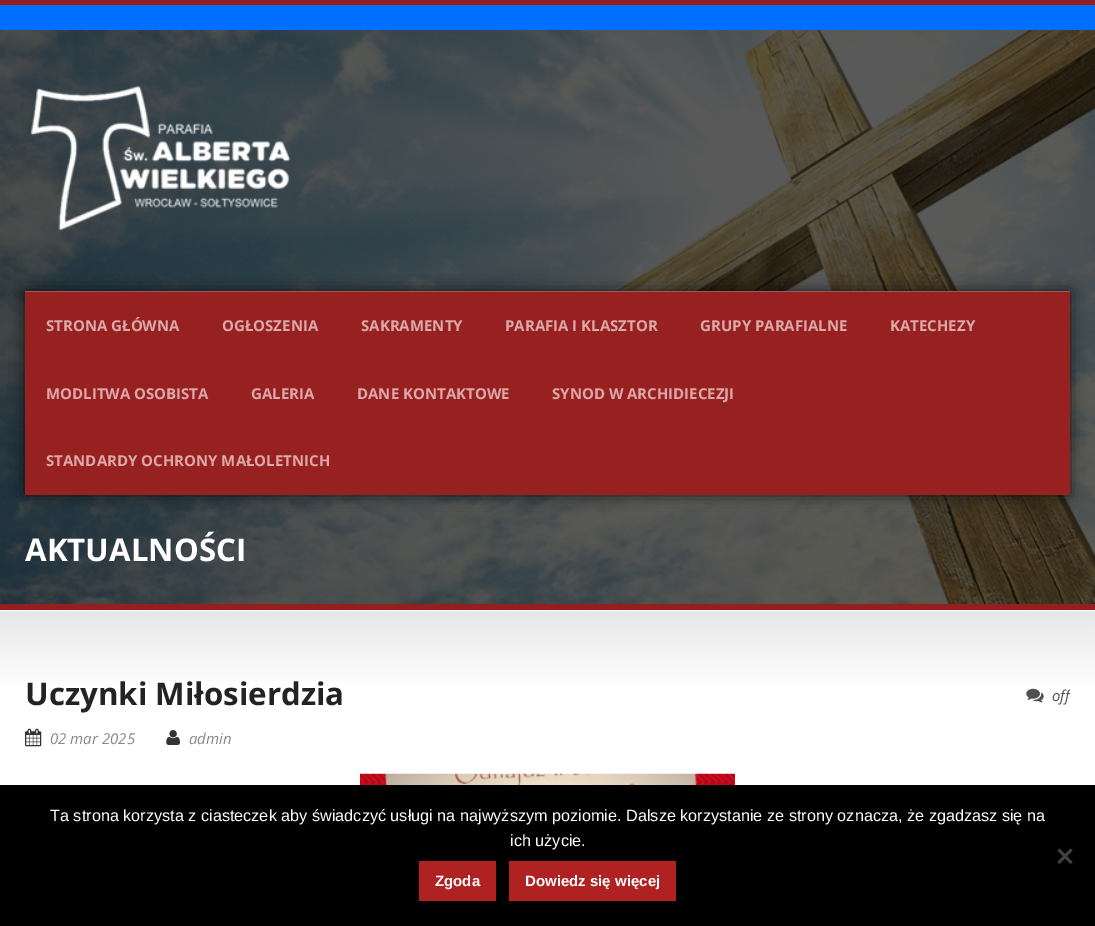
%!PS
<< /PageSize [1095 926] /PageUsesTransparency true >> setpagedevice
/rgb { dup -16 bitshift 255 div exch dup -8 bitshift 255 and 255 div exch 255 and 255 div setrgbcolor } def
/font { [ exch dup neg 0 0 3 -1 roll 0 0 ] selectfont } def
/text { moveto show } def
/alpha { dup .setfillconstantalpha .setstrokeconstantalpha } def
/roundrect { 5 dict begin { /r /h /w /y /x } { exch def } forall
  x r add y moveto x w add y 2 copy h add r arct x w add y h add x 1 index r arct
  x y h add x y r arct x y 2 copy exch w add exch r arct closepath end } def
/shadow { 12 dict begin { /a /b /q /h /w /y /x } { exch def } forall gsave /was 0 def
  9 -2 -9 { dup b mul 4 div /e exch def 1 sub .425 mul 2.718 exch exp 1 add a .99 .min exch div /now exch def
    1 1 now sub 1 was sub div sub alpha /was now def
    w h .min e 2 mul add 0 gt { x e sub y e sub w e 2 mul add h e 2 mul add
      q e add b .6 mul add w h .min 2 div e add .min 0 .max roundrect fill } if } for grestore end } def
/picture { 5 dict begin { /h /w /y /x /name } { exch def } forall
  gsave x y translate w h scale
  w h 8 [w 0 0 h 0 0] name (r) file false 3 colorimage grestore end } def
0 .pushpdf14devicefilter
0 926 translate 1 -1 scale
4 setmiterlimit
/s1 { /OpenSans-Bold 15 font 16#DCA8A8 rgb } def
/s2 { /OpenSans-Bold 31.25 font 16#FFFFFF rgb } def
/s3 { /OpenSans-Bold 31.25 font 16#232323 rgb } def
/s4 { /OpenSans-Italic 15 font 16#505050 rgb } def
/s5 { /OpenSans-Italic 15 font 16#878787 rgb } def
/s6 { /LiberationSans-Regular 16.25 font 16#FFFFFF rgb } def
/s7 { /LiberationSans-Bold 15 font 16#FFFFFF rgb } def
16#FFFFFF rgb
0 0 1095 926 rectfill
16#006FFF rgb
0 5 1095 25 rectfill
16#931F1F rgb
0 0 1095 5 rectfill
(pic1.raw) 0 30 1095 574 picture
(pic2.raw) 30 86 261 145 picture
16#000000 rgb
25 291 1045 204 0 7.5 0.7 shadow
16#972121 rgb
25 292 1045 203 rectfill
16#A05858 rgb
25 291 1045 1 rectfill
s1
(STRONA GŁÓWNA) 46 331 text
(OGŁOSZENIA) 222 331 text
(SAKRAMENTY) 361 331 text
(PARAFIA I KLASZTOR) 505 331 text
(GRUPY PARAFIALNE) 700 331 text
(KATECHEZY) 890 331 text
(MODLITWA OSOBISTA) 46 399 text
(GALERIA) 251 399 text
(DANE KONTAKTOWE) 357 399 text
(SYNOD W ARCHIDIECEZJI) 552 399 text
(STANDARDY OCHRONY MAŁOLETNICH) 46 466 text
s2
(AKTUALNOŚCI) 25 561 text
16#931F1F rgb
0 604 1095 6 rectfill
(pic3.raw) 0 611 1095 70 picture
s3
(Uczynki Miłosierdzia) 25 705 text
(pic4.raw) 1026 688 18 15 picture
gsave
25 673 1045 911 rectclip
s4
(off) 1052 701 text
grestore
(pic5.raw) 25 728 17 19 picture
s5
(02 mar 2025) 50 744 text
(pic6.raw) 166 730 14 15 picture
(admin) 189 744 text
(pic7.raw) 360 773 375 12 picture
16#000000 rgb
0 785 1095 141 rectfill
s6
(Ta strona korzysta z ciasteczek aby świadczyć usługi na najwyższym poziomie. Dalsze korzystanie ze strony oznacza, że zgadzasz się na) 50 821 text
(ich użycie.) 510 846 text
16#404040 rgb
1070.5 848.5 moveto 1072.5 850.5 lineto 1059.5 864 lineto 1057.5 862 lineto closepath fill
1057.5 850.5 moveto 1059.5 848.5 lineto 1072.5 862 lineto 1070.5 864 lineto closepath fill
16#B02121 rgb
419 861 77 40 rectfill
s7
(Zgoda) 435 886 text
16#B02121 rgb
509 861 167 40 rectfill
s7
(Dowiedz się więcej) 525 886 text
.poppdf14devicefilter showpage
